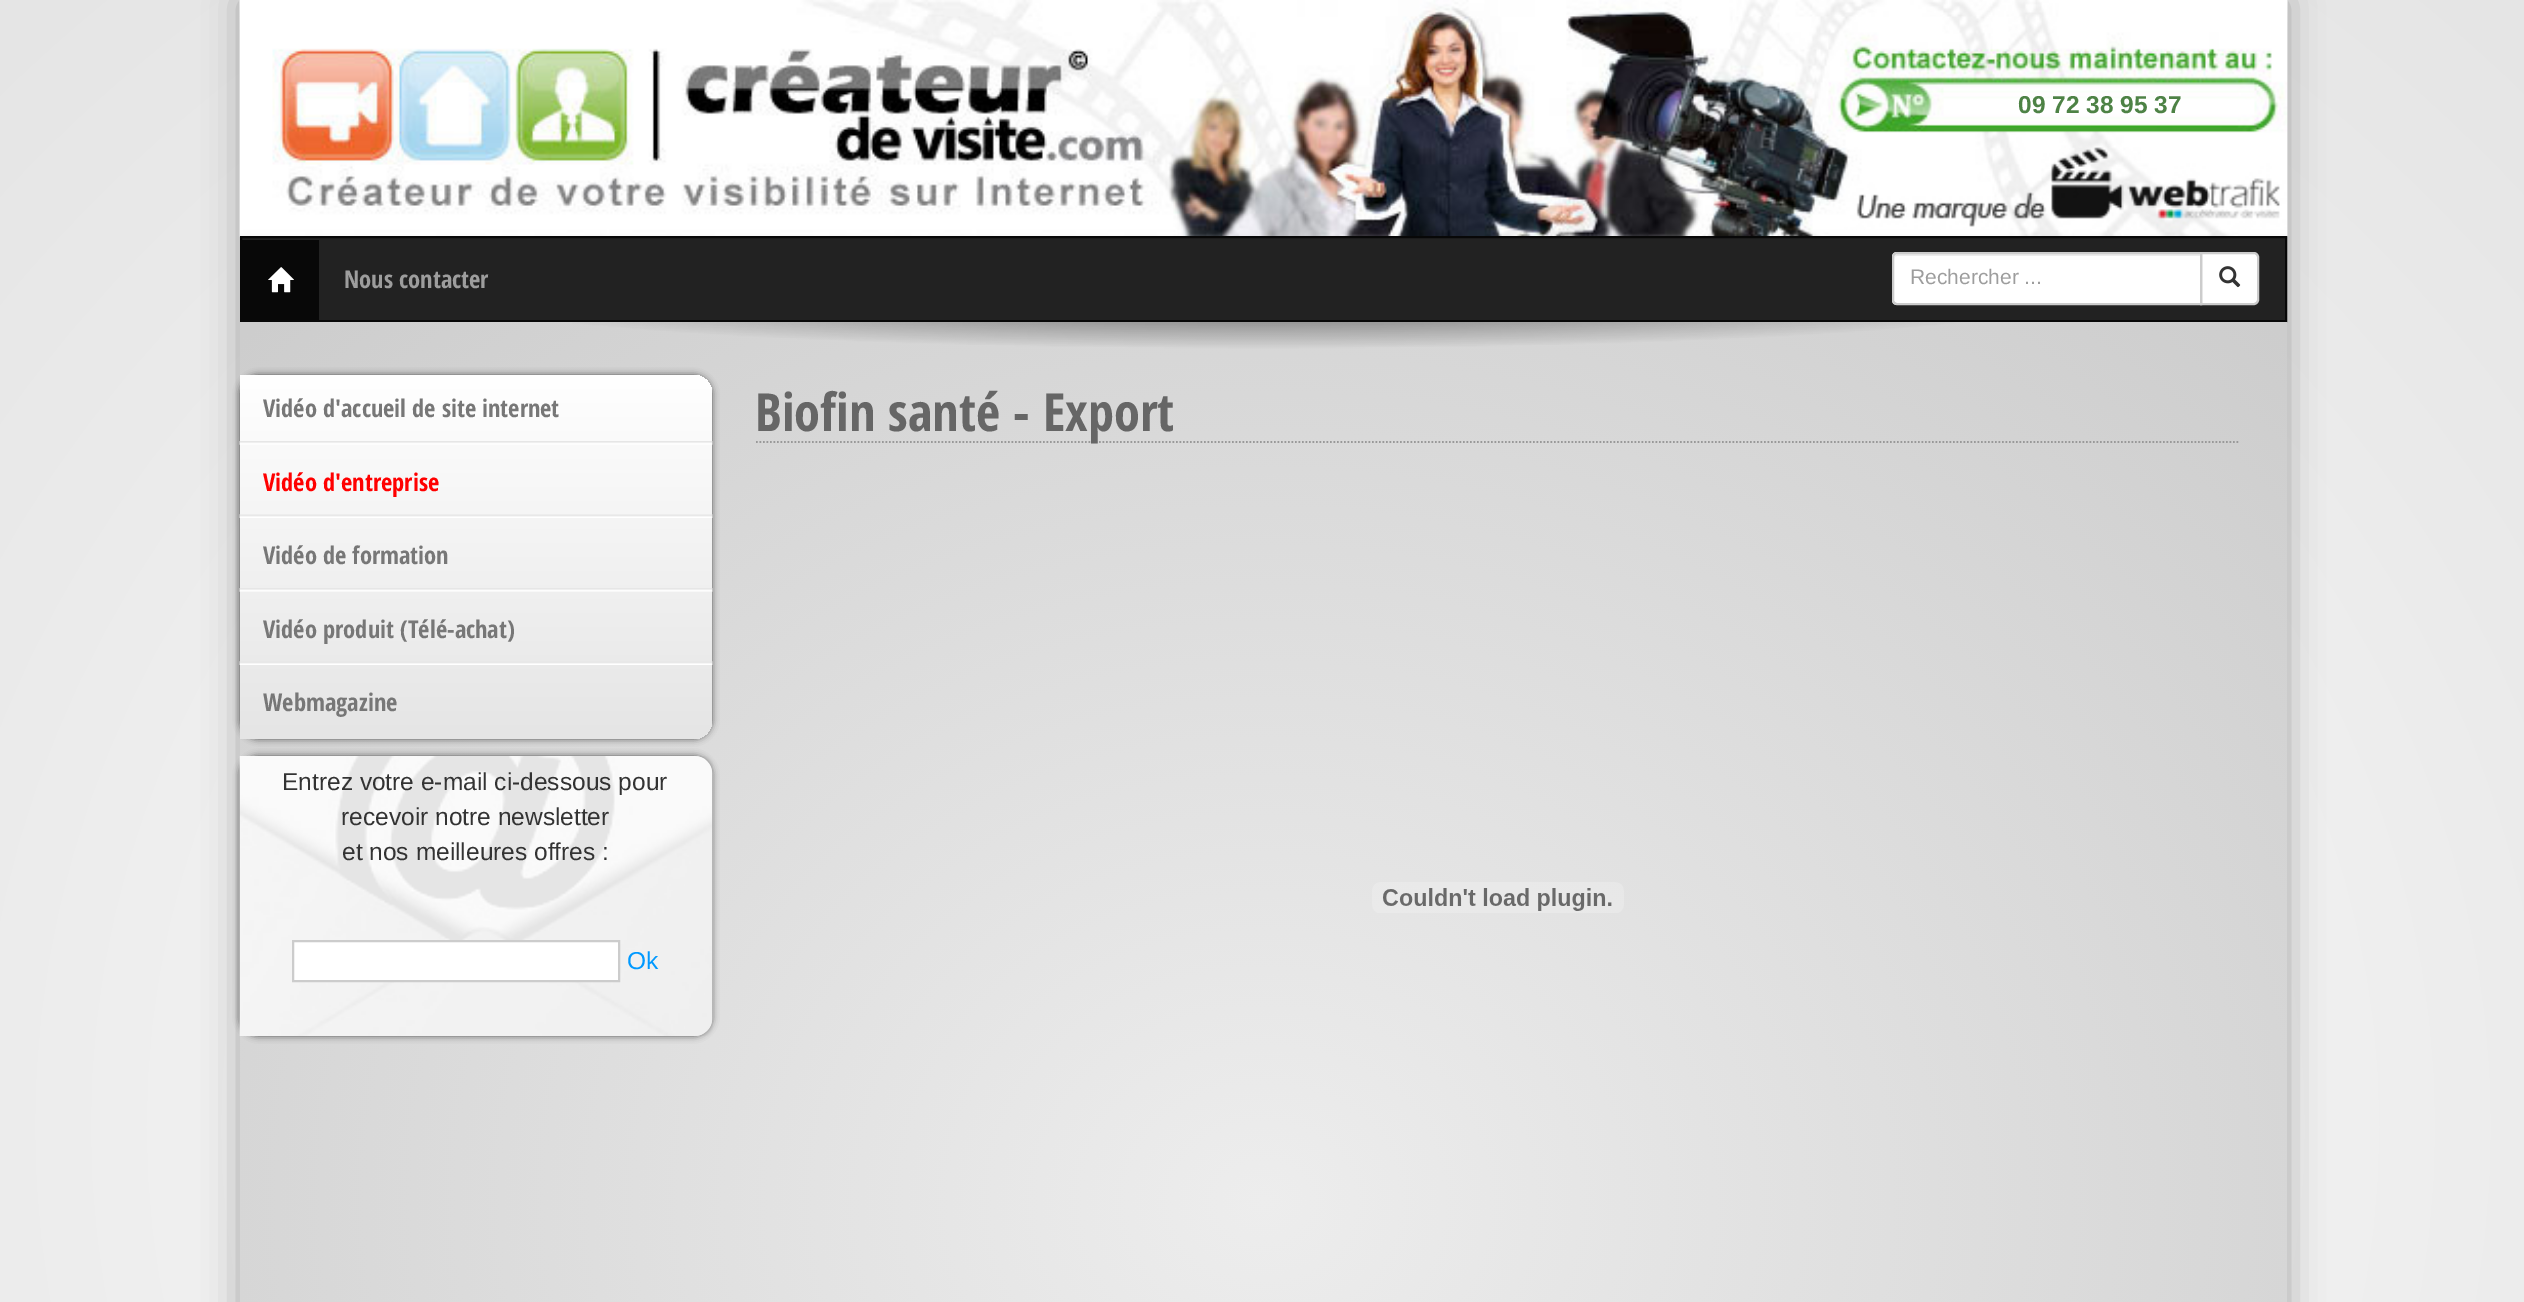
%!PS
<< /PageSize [2524 1302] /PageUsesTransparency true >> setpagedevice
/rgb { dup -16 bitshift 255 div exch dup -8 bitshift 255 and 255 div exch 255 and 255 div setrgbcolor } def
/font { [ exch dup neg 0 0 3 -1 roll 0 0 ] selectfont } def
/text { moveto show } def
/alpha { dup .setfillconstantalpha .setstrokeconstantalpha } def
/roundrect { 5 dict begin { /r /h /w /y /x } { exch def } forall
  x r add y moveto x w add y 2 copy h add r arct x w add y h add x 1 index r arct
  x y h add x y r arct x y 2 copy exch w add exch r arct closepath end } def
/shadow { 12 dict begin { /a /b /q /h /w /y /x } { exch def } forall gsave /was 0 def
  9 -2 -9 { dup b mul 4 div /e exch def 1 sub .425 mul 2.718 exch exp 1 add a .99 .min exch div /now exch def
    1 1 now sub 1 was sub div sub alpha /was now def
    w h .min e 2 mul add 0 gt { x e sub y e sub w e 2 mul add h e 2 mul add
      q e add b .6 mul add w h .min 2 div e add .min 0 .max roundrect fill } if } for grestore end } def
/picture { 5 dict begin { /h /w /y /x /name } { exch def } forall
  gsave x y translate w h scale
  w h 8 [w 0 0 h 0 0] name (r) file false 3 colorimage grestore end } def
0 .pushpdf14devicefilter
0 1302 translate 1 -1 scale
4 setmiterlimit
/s1 { /LiberationSans-Bold 24.5 font 16#4D8245 rgb } def
/s2 { /OpenSansCondensed-Bold 24.5 font 16#9D9D9D rgb } def
/s3 { /LiberationSans-Regular 21 font 16#9D9D9D rgb } def
/s4 { /OpenSansCondensed-Bold 24.5 font 16#777777 rgb } def
/s5 { /OpenSansCondensed-Bold 24.5 font 16#FF0000 rgb } def
/s6 { /LiberationSans-Regular 24.5 font 16#333333 rgb } def
/s7 { /LiberationSans-Regular 24.5 font 16#0099FF rgb } def
/s8 { /OpenSansCondensed-Bold 52.5 font 16#666666 rgb } def
16#FFFFFF rgb
0 0 2524 1302 rectfill
gsave 0 0 moveto 2524 0 lineto 2524 1302 lineto 0 1302 lineto closepath clip newpath 1263 1127 translate 1786 1594 scale
<< /ShadingType 3 /ColorSpace /DeviceRGB /Coords [0 0 0 0 0 1] /Extend [true true] /Function << /FunctionType 2 /Domain [0 1] /C0 [1 1 1] /C1 [0.898 0.898 0.898] /N 1 >> >> shfill grestore
16#000000 rgb
240 0 2047 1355 0 17.5 0.3 shadow
(pic1.raw) 239 0 2049 237 picture
s1
(09 72 38 95 37) 2018 113 text
16#222222 rgb
241 237 moveto 2286 237 lineto 2286 321 lineto 241 321 lineto closepath gsave fill grestore
16#080808 rgb
2 setlinewidth
stroke
242 240 77 80 rectfill
(pic2.raw) 268 267 26 26 picture
s2
(Nous contacter) 344 288 text
16#FFFFFF rgb
2201 253 moveto 2254 253 lineto 2256 253 2258 255 2258 257 curveto 2258 300 lineto 2258 302 2256 304 2254 304 curveto 2201 304 lineto closepath gsave fill grestore
16#CCCCCC rgb
stroke
16#FFFFFF rgb
1897 252 moveto 2202 252 lineto 2202 305 lineto 1897 305 lineto 1894 305 1892 303 1892 300 curveto 1892 257 lineto 1892 254 1894 252 1897 252 curveto closepath fill
16#ECECEC rgb
1897 256 moveto 2200 256 lineto 2200 254 lineto 1898 254 lineto 1896 254 1894 256 1894 258 curveto 1894 259 lineto 1894 257 1895 256 1897 256 curveto closepath fill
16#CCCCCC rgb
1897 253 moveto 2201 253 lineto 2201 304 lineto 1897 304 lineto 1895 304 1893 302 1893 300 curveto 1893 257 lineto 1893 255 1895 253 1897 253 curveto closepath stroke
s3
(Rechercher ...) 1910 284 text
(pic3.raw) 2219 266 22 22 picture
(pic4.raw) 240 322 2047 980 picture
16#000000 rgb
240 375 472 364 18 3.5 0.6 shadow
gsave 240 375 moveto 694 375 lineto 704 375 712 383 712 393 curveto 712 721 lineto 712 731 704 739 694 739 curveto 240 739 lineto closepath clip newpath
<< /ShadingType 2 /ColorSpace /DeviceRGB /Coords [476 375 476 739] /Extend [true true] /Function << /FunctionType 2 /Domain [0 1] /C0 [1 1 1] /C1 [0.898 0.898 0.898] /N 1 >> >> shfill grestore
(pic5.raw) 239 441 474 4 picture
s4
(Vidéo d'accueil de site internet) 263 417 text
(pic6.raw) 239 514 474 4 picture
s5
(Vidéo d'entreprise) 263 491 text
(pic7.raw) 239 588 474 4 picture
s4
(Vidéo de formation) 263 564 text
(pic8.raw) 239 661 474 4 picture
(Vidéo produit \(Télé-achat\)) 263 638 text
(Webmagazine) 263 711 text
16#000000 rgb
240 756 472 280 18 3.5 0.6 shadow
(pic9.raw) 239 756 474 280 picture
s6
(Entrez votre e-mail ci-dessous pour) 282 790 text
(recevoir notre newsletter) 341 825 text
(et nos meilleures offres :) 342 860 text
16#FFFFFF rgb
293 941 moveto 619 941 lineto 619 981 lineto 293 981 lineto closepath gsave fill grestore
16#CCCCCC rgb
stroke
s7
(Ok) 627 969 text
16#999999 rgb
1.8 setlinewidth
[1.75 1.75] 0 setdash
756 442 moveto 2240 442 lineto stroke
s8
(Biofin santé - Export) 755 431 text
(pic10.raw) 1372 882 252 31 picture
.poppdf14devicefilter showpage
